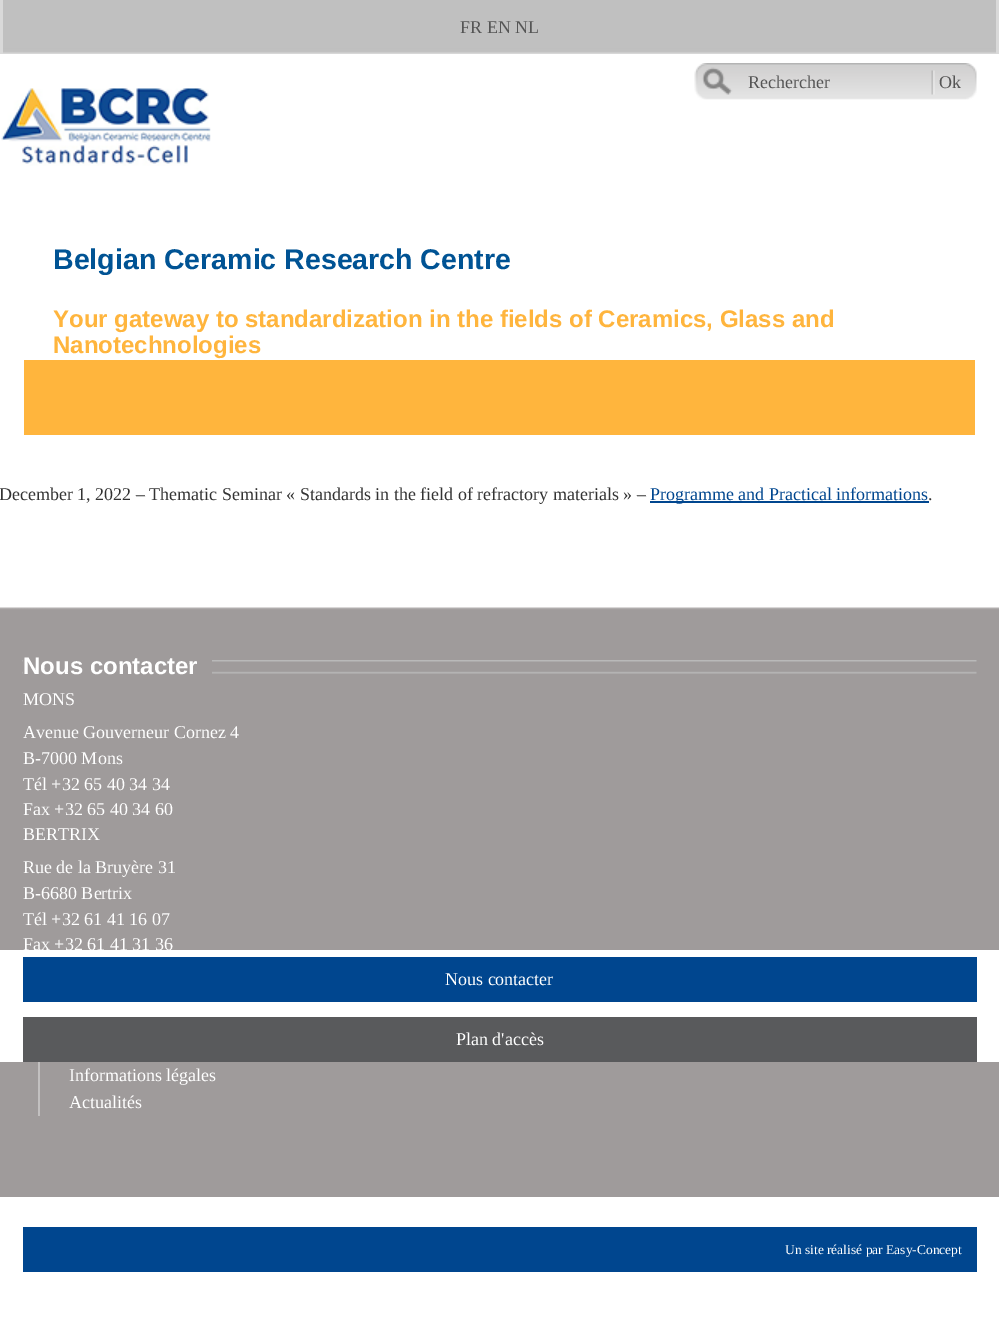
%!PS
<< /PageSize [999 1341] >> setpagedevice
/rgb { dup -16 bitshift 255 div exch dup -8 bitshift 255 and 255 div exch 255 and 255 div setrgbcolor } def
/font { [ exch dup neg 0 0 3 -1 roll 0 0 ] selectfont } def
/text { moveto show } def
/picture { 5 dict begin { /h /w /y /x /name } { exch def } forall
  gsave x y translate w h scale
  w h 8 [w 0 0 h 0 0] name (r) file false 3 colorimage grestore end } def
0 1341 translate 1 -1 scale
4 setmiterlimit
/s1 { /LiberationSerif-Regular 18 font 16#555555 rgb } def
/s2 { /LiberationSans-Bold 28.5 font 16#005394 rgb } def
/s3 { /LiberationSans-Bold 24 font 16#FFB53D rgb } def
/s4 { /LiberationSerif-Regular 18 font 16#333333 rgb } def
/s5 { /LiberationSerif-Regular 18 font 16#00468F rgb } def
/s6 { /LiberationSans-Bold 24 font 16#FFFFFF rgb } def
/s7 { /LiberationSerif-Regular 18 font 16#FFFFFF rgb } def
/s8 { /LiberationSerif-Regular 13.5 font 16#FFFFFF rgb } def
16#FFFFFF rgb
0 0 999 1341 rectfill
(pic1.raw) 3 0 993 54 picture
16#D9D9D9 rgb
996 0 3 54 rectfill
0 0 3 54 rectfill
s1
(FR EN NL) 460 33 text
(pic2.raw) 694 63 283 37 picture
(Rechercher) 748 88 text
(Ok) 939 88 text
(pic3.raw) 1 88 210 78 picture
s2
(Belgian Ceramic Research Centre) 53 269 text
s3
(Your gateway to standardization in the fields of Ceramics, Glass and) 53 327 text
(Nanotechnologies) 53 353 text
24 360 951 75 rectfill
s4
(December 1, 2022 – Thematic Seminar « Standards in the field of refractory materials » –) -1 500 text
16#00468F rgb
650 501 279 2 rectfill
(Programme and Practical informations) 650 500 text
s4
(.) 928 500 text
(pic4.raw) 0 607 999 208 picture
(pic5.raw) 22 660 955 14 picture
16#9F9B9B rgb
23 660 189 14 rectfill
s6
(Nous contacter) 23 674 text
s7
(MONS) 23 705 text
(Avenue Gouverneur Cornez 4) 23 738 text
(B-7000 Mons) 23 764 text
(Tél +32 65 40 34 34) 23 790 text
(Fax +32 65 40 34 60) 23 815 text
16#9F9B9B rgb
0 815 999 135 rectfill
s7
(BERTRIX) 23 840 text
(Rue de la Bruyère 31) 23 873 text
(B-6680 Bertrix) 23 899 text
(Tél +32 61 41 16 07) 23 925 text
(Fax +32 61 41 31 36) 23 950 text
16#00468F rgb
23 957 954 45 rectfill
s7
(Nous contacter) 445 985 text
16#595A5C rgb
23 1017 954 45 rectfill
s7
(Plan d'accès) 456 1045 text
16#9F9B9B rgb
0 1062 999 135 rectfill
16#C2C0C0 rgb
38 1062 2 54 rectfill
s7
(Informations légales) 69 1081 text
(Actualités) 69 1108 text
16#00468F rgb
23 1227 954 45 rectfill
s8
(Un site réalisé par Easy-Concept) 785 1254 text
showpage
